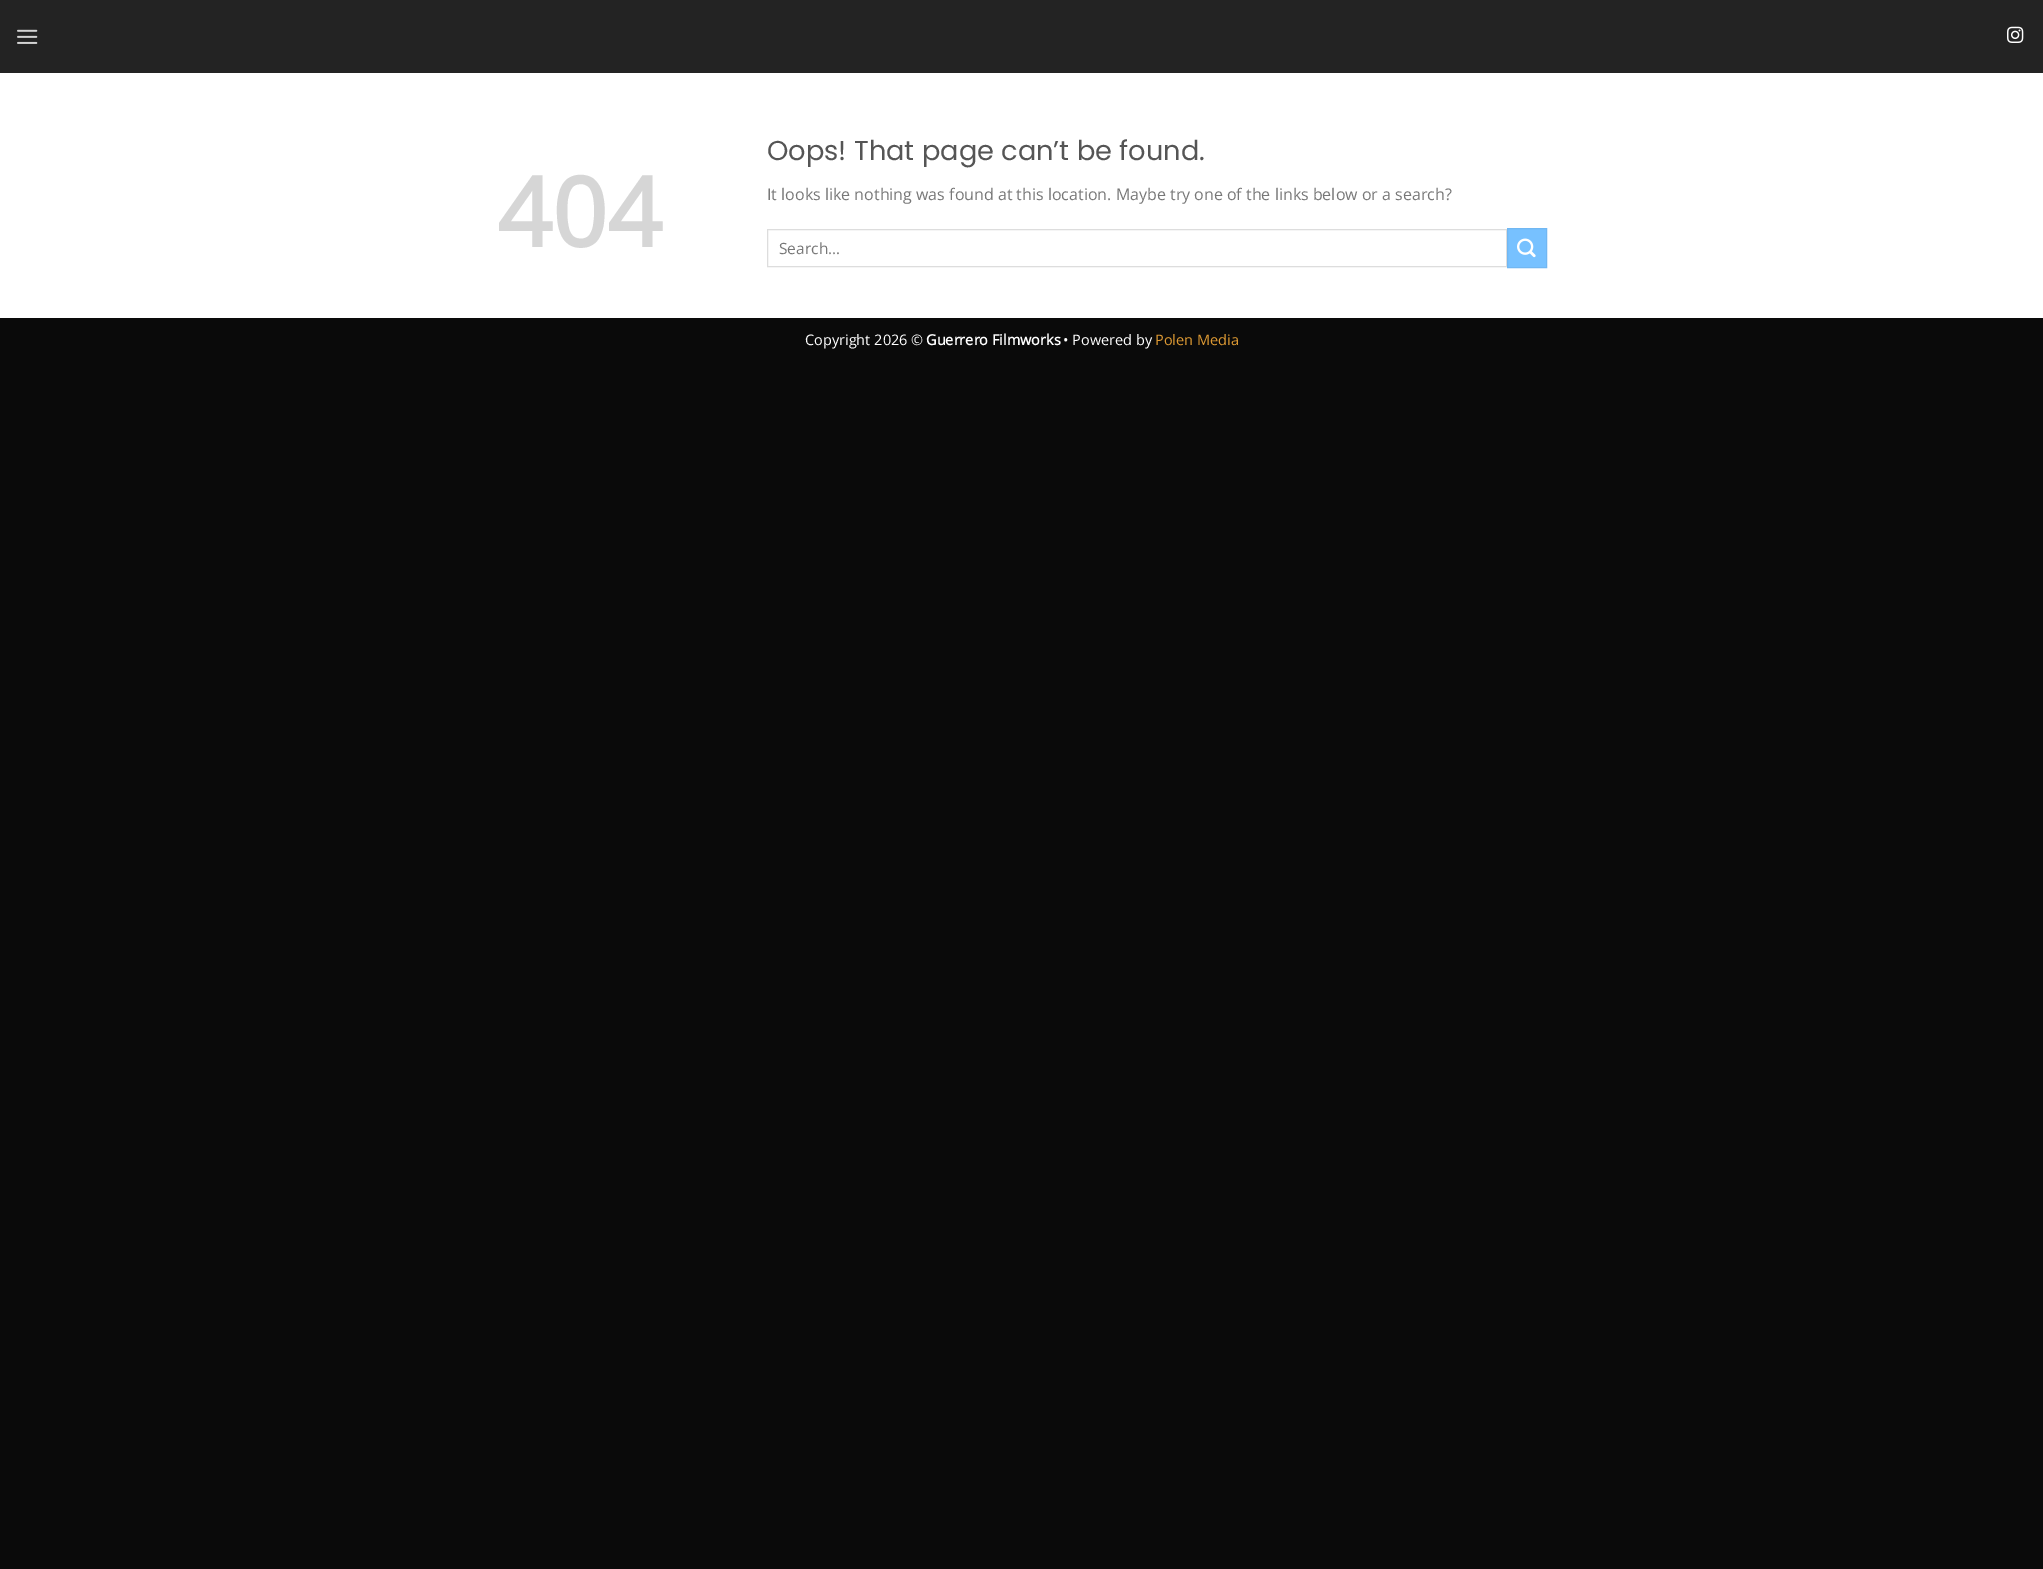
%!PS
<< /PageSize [2043 1569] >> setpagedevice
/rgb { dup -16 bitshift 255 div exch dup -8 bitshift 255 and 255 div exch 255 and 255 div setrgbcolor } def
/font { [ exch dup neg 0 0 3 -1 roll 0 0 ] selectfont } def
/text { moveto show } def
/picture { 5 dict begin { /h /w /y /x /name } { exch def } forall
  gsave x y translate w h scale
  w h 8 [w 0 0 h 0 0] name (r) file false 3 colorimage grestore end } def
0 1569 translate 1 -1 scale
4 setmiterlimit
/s1 { /OpenSans-Bold 96 font 16#D6D6D6 rgb } def
/s2 { /Poppins-Regular 27.25 font 16#555555 rgb } def
/s3 { /OpenSans-Regular 16 font 16#777777 rgb } def
/s4 { /OpenSans-Regular 15.5 font 16#777777 rgb } def
/s5 { /OpenSans-Regular 14.5 font 16#FFFFFF rgb } def
/s6 { /OpenSans-Bold 14.5 font 16#FFFFFF rgb } def
/s7 { /OpenSans-Regular 14.5 font 16#DD9933 rgb } def
16#0A0A0A rgb
0 0 2043 1569 rectfill
16#FFFFFF rgb
0 73 2043 245 rectfill
16#232323 rgb
0 0 2043 73 rectfill
(pic1.raw) 17 29 21 15 picture
(pic2.raw) 2007 26 17 17 picture
s1
(404) 497 247 text
s2
(Oops! That page can’t be found.) 767 160 text
s3
(It looks like nothing was found at this location. Maybe try one of the links below or a search?) 767 200 text
16#DDDDDD rgb
767.5 229.5 739 37 rectstroke
s4
(Search…) 779 254 text
16#77C1FF rgb
1507.5 228.5 moveto 1546.5 228.5 lineto 1546.5 267.5 lineto 1507.5 267.5 lineto closepath gsave fill grestore
16#71B7F2 rgb
stroke
(pic3.raw) 1517 238 19 20 picture
s5
(Copyright 2026 ©) 805 345 text
s6
(Guerrero Filmworks) 926 345 text
s5
(• Powered by) 1063 345 text
s7
(Polen Media) 1155 345 text
showpage
